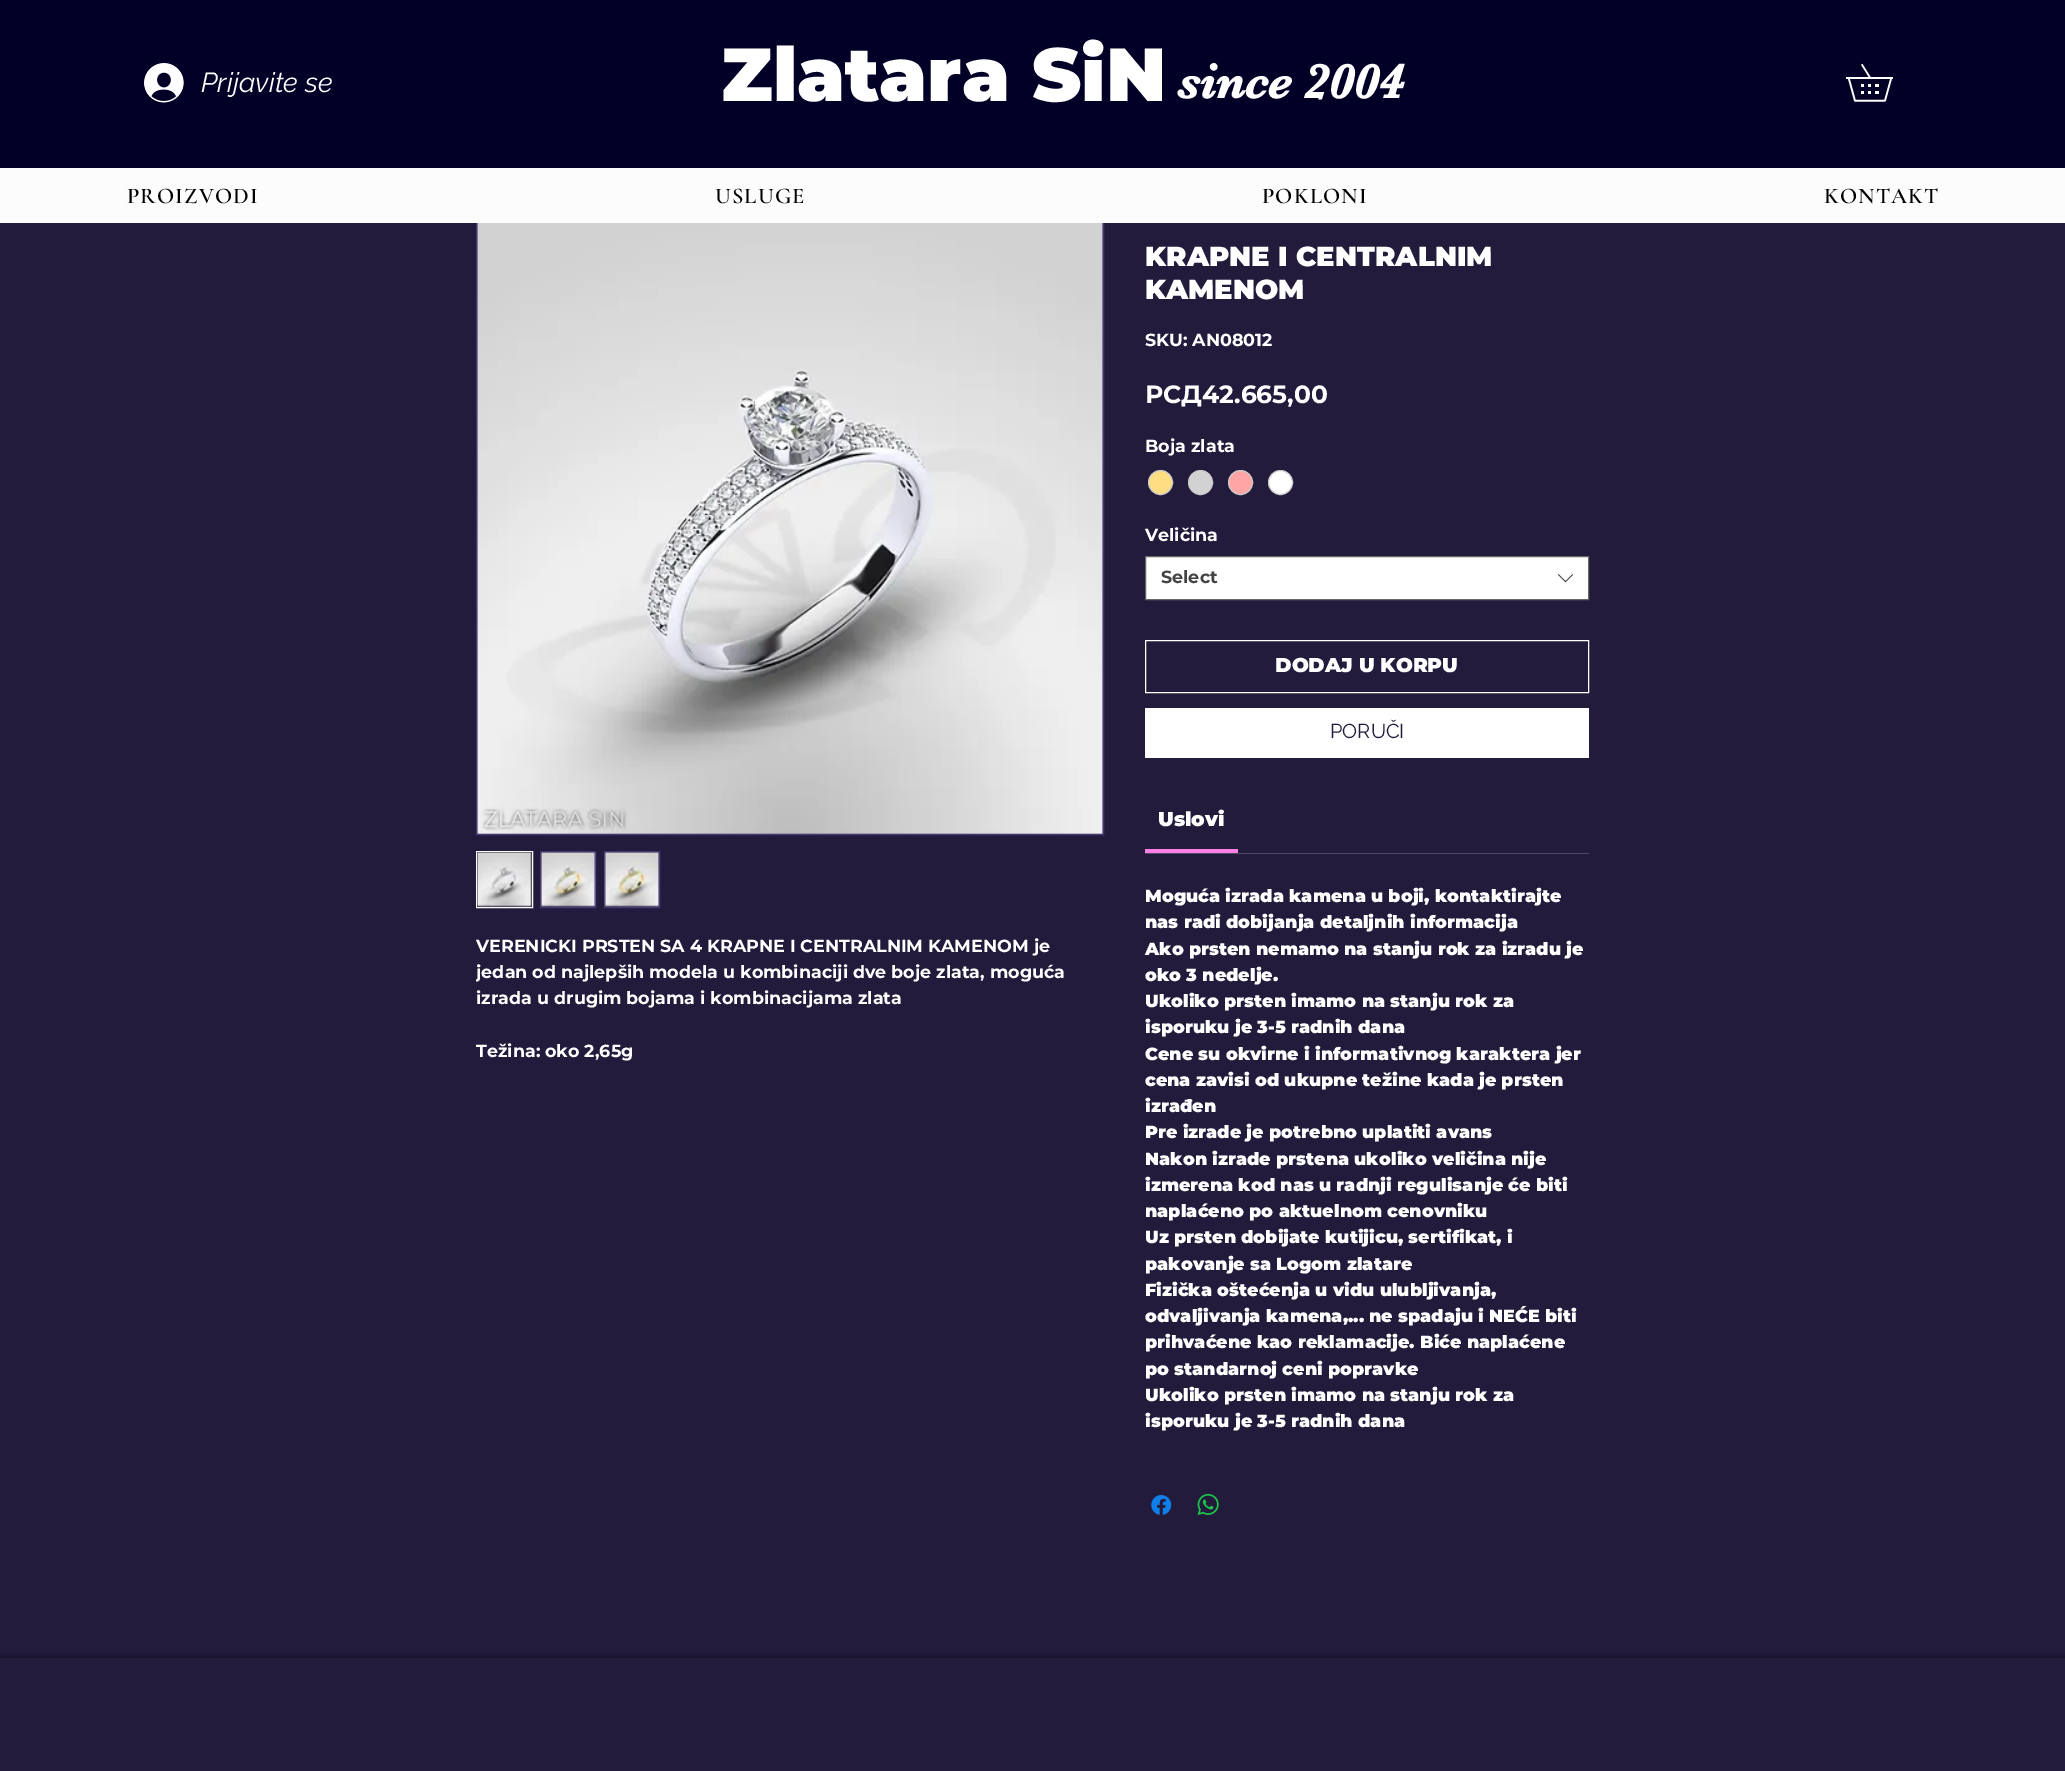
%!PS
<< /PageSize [2065 1771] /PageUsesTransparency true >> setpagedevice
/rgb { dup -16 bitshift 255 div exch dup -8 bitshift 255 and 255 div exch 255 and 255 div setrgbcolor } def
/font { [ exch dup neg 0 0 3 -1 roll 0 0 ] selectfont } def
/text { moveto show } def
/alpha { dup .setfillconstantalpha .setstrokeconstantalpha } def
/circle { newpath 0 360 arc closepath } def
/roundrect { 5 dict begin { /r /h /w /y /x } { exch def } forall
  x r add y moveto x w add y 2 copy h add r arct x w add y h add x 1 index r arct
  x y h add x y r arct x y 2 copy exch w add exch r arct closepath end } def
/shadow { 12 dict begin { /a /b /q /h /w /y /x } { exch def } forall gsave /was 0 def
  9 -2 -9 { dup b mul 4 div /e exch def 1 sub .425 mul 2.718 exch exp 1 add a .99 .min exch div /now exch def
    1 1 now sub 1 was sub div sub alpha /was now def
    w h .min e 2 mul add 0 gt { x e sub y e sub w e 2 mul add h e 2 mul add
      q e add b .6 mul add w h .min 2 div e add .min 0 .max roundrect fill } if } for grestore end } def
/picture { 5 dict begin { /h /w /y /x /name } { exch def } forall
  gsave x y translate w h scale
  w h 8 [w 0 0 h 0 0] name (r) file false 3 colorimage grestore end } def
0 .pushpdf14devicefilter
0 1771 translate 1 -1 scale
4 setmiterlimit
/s1 { /Raleway-Italic 27.5 font 16#FFFFFF rgb } def
/s2 { /Montserrat-Thin 75 font 16#FFFFFF rgb } def
/s3 { /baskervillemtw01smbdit-Bold 50 font 16#FFFFFF rgb } def
/s4 { /Montserrat-Bold 17.5 font 16#FFFFFF rgb } def
/s5 { /Montserrat-Thin 27.5 font 16#FFFFFF rgb } def
/s6 { /Montserrat-Bold 25 font 16#FFFFFF rgb } def
/s7 { /Montserrat-Bold 17.5 font 16#444444 rgb } def
/s8 { /Montserrat-Thin 20 font 16#FFFFFF rgb } def
/s9 { /Raleway-Regular 20 font 16#231B3B rgb } def
/s10 { /Montserrat-Thin 17.5 font 16#FFFFFF rgb } def
16#231B3B rgb
0 0 2065 1771 rectfill
16#030027 rgb
0 0 2065 168 rectfill
(pic1.raw) 144 63 40 40 picture
s1
(Prijavite se) 201 92 text
s2
(Zlatara SiN) 721 101 text
s3
(since 2004) 1177 98 text
(pic2.raw) 1846 63 47 39 picture
16#483778 rgb
476.5 208.5 627 626 rectstroke
16#FCFCFC rgb
0 168 2065 55 rectfill
/CormorantGaramond-SemiBold 22.5 font
16#000000 rgb
127 203 moveto 1.1 0 (PROIZVODI) ashow
715 203 moveto 1.1 0 (USLUGE) ashow
1262 203 moveto 1.1 0 (POKLONI) ashow
1824 203 moveto 1.1 0 (KONTAKT) ashow
(pic3.raw) 477 223 626 611 picture
16#FFFFFF rgb
476.5 851.5 56 56 rectstroke
(pic4.raw) 477 852 55 55 picture
16#483778 rgb
540.5 851.5 55 56 rectstroke
(pic5.raw) 540 852 56 55 picture
604.5 851.5 55 56 rectstroke
(pic6.raw) 604 852 56 55 picture
s4
(VERENICKI PRSTEN SA 4 KRAPNE I CENTRALNIM KAMENOM je) 476 952 text
gsave
476 933 625 131 rectclip
(jedan od najlepših modela u kombinaciji dve boje zlata, moguća) 476 978 text
grestore
(izrada u drugim bojama i kombinacijama zlata) 476 1004 text
(Težina: oko 2,65g) 476 1057 text
s5
(KRAPNE I CENTRALNIM) 1145 266 text
(KAMENOM) 1145 299 text
s4
(SKU: AN08012) 1145 346 text
s6
(РСД42.665,00) 1145 403 text
s4
(Boja zlata) 1145 452 text
16#FFDD82 rgb
1160.5 482.5 12 circle gsave fill grestore
16#C9C9C9 rgb
stroke
16#D2D2D2 rgb
1200.5 482.5 12 circle gsave fill grestore
16#C9C9C9 rgb
stroke
16#FFA5A5 rgb
1240.5 482.5 12 circle gsave fill grestore
16#C9C9C9 rgb
stroke
16#FFFFFF rgb
1280.5 482.5 12 circle gsave fill grestore
16#C9C9C9 rgb
stroke
s4
(Veličina) 1145 541 text
1145.5 556.5 moveto 1588.5 556.5 lineto 1588.5 599.5 lineto 1145.5 599.5 lineto closepath gsave fill grestore
16#666666 rgb
stroke
s7
(Select) 1161 583 text
(pic7.raw) 1557 574 17 9 picture
16#FFFFFF rgb
1145.5 640.5 443 52 rectstroke
s8
(DODAJ U KORPU) 1275 672 text
1145 708 444 50 rectfill
s9
(PORUČI) 1330 738 text
16#4F4962 rgb
1145 853 444 1 rectfill
16#FF7FE8 rgb
1145 849 93 4 rectfill
s8
(Uslovi) 1158 826 text
s10
(Moguća izrada kamena u boji, kontaktirajte) 1145 902 text
(nas radi dobijanja detaljnih informacija) 1145 928 text
(Ako prsten nemamo na stanju rok za izradu je) 1145 955 text
(oko 3 nedelje.) 1145 981 text
(Ukoliko prsten imamo na stanju rok za) 1145 1007 text
(isporuku je 3-5 radnih dana) 1145 1033 text
(Cene su okvirne i informativnog karaktera jer) 1145 1060 text
(cena zavisi od ukupne težine kada je prsten) 1145 1086 text
(izrađen) 1145 1112 text
(Pre izrade je potrebno uplatiti avans) 1145 1138 text
(Nakon izrade prstena ukoliko veličina nije) 1145 1165 text
(izmerena kod nas u radnji regulisanje će biti) 1145 1191 text
(naplaćeno po aktuelnom cenovniku) 1145 1217 text
(Uz prsten dobijate kutijicu, sertifikat, i) 1145 1243 text
(pakovanje sa Logom zlatare) 1145 1270 text
(Fizička oštećenja u vidu ulubljivanja,) 1145 1296 text
(odvaljivanja kamena,... ne spadaju i NEĆE biti) 1145 1322 text
(prihvaćene kao reklamacije. Biće naplaćene) 1145 1348 text
(po standarnoj ceni popravke) 1145 1375 text
(Ukoliko prsten imamo na stanju rok za) 1145 1401 text
(isporuku je 3-5 radnih dana) 1145 1427 text
(pic8.raw) 1151 1495 21 20 picture
(pic9.raw) 1197 1493 22 23 picture
gsave
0 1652 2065 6 rectclip
16#000000 rgb
0 1658 2065 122 0 3 0.7 shadow
grestore
.poppdf14devicefilter showpage
